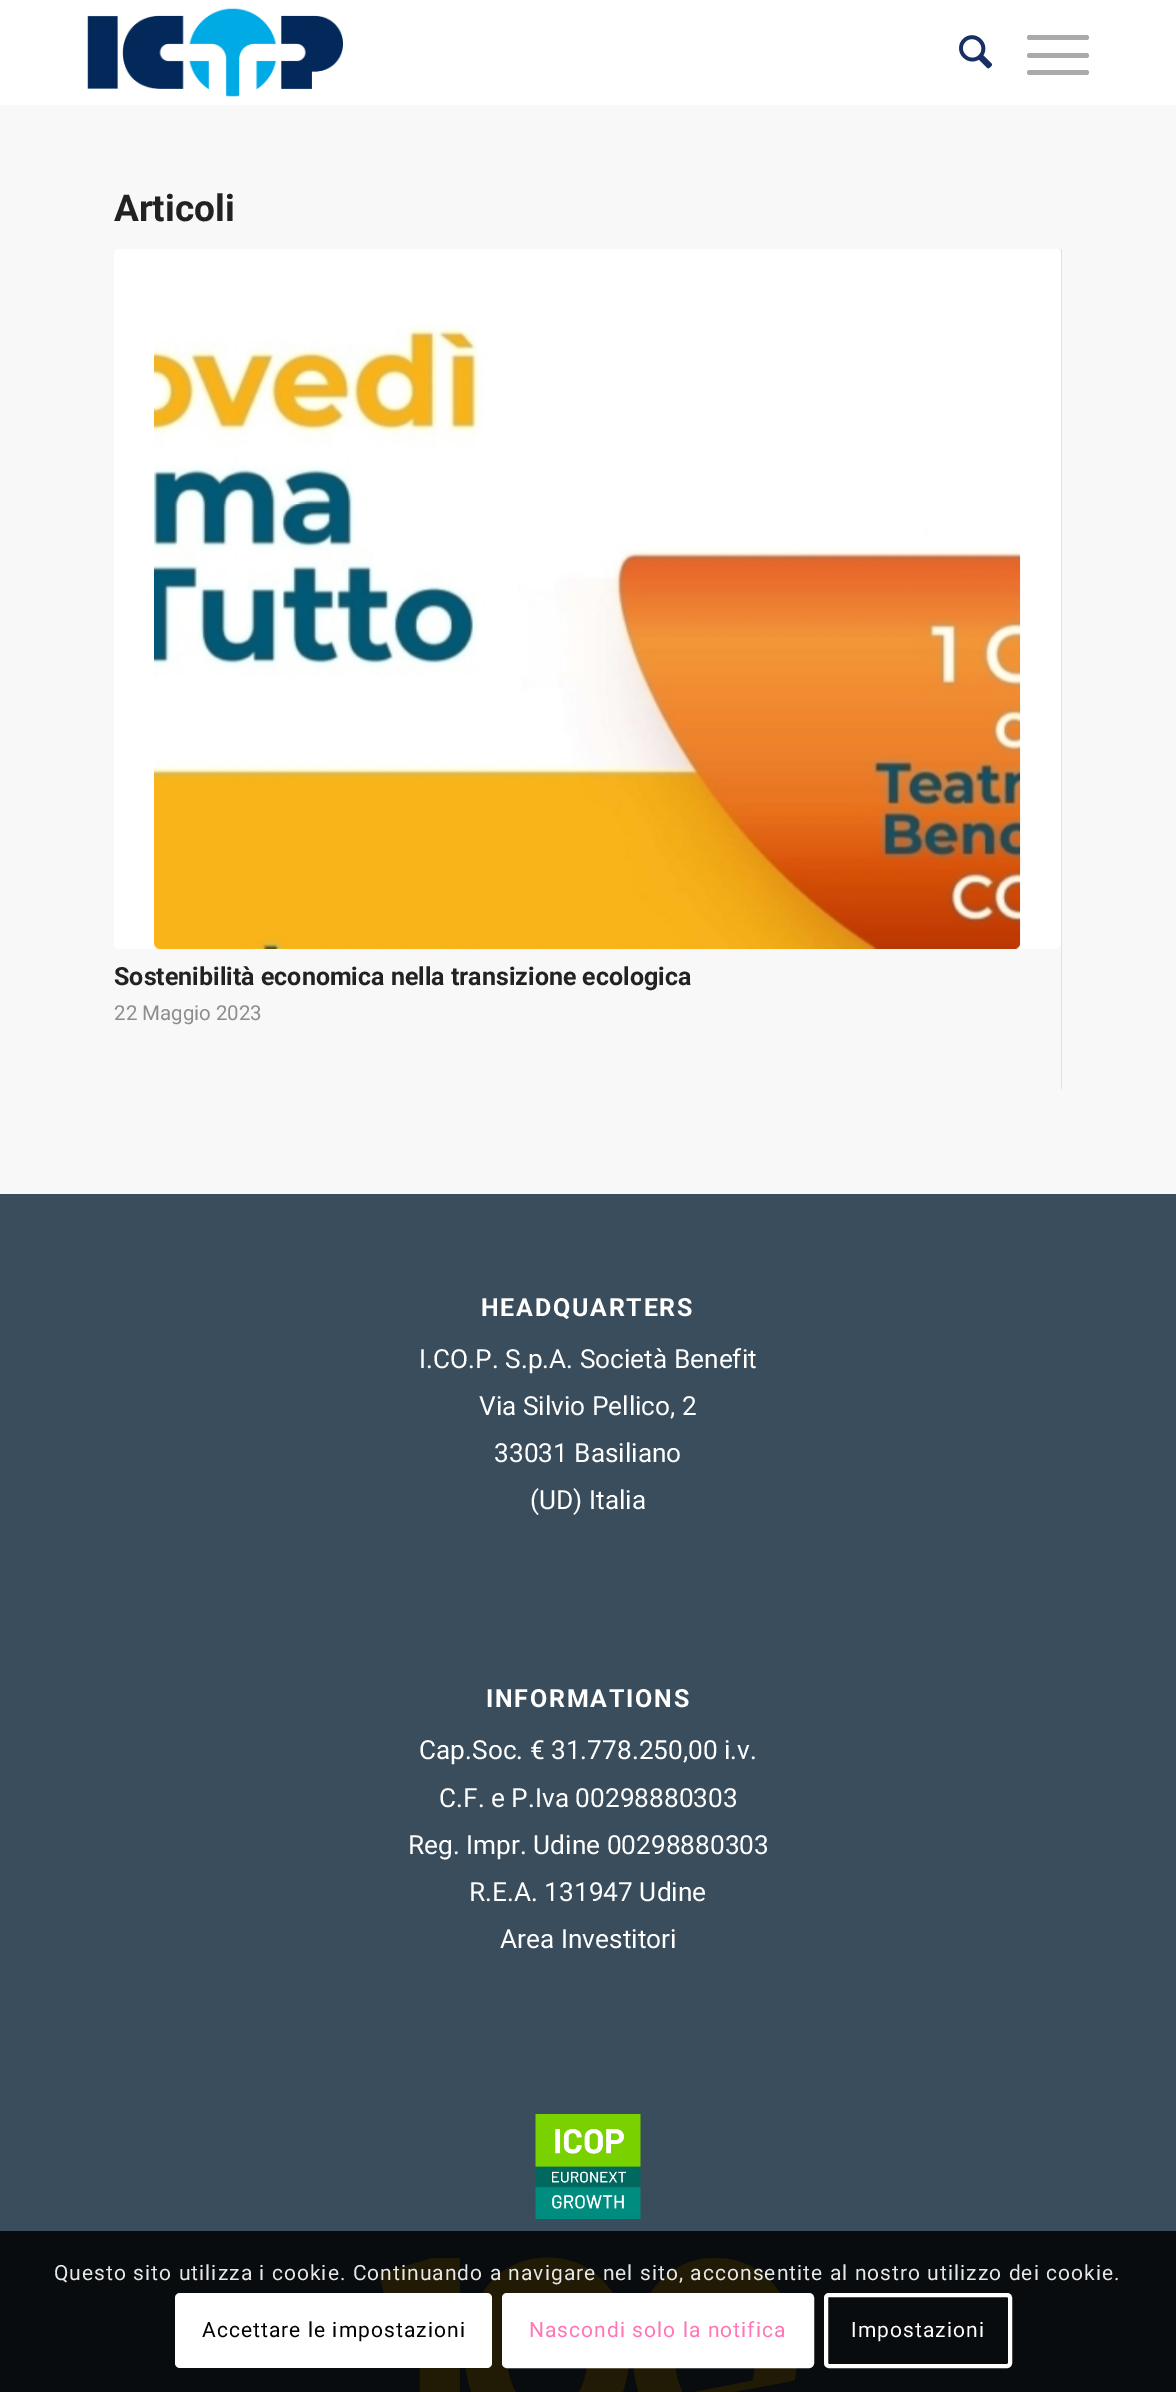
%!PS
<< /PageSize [1176 2392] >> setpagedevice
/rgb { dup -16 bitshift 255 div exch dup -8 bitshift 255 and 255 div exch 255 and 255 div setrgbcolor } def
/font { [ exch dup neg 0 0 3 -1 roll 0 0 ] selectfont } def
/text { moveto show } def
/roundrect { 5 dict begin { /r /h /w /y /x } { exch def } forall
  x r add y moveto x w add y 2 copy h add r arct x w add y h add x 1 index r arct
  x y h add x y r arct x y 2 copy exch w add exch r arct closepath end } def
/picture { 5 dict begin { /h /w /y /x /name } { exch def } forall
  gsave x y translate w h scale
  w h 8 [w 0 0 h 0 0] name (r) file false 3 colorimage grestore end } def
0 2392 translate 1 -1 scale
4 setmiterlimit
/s1 { /Roboto-Bold 37 font 16#222222 rgb } def
/s2 { /Roboto-Bold 25 font 16#222222 rgb } def
/s3 { /Roboto-Regular 20.5 font 16#8D8D8D rgb } def
/s4 { /Roboto-Regular 26.25 font 16#FFFFFF rgb } def
16#F8F8F8 rgb
0 0 1176 2392 rectfill
16#FFFFFF rgb
0 0 1176 105 rectfill
(pic1.raw) 87 8 256 89 picture
(pic2.raw) 959 35 34 34 picture
16#AAAAAA rgb
1027 53 62 5 2.5 roundrect fill
1027 35 62 5 2.5 roundrect fill
1027 70 62 5 2.5 roundrect fill
s1
(Articoli) 114 221 text
16#E1E1E1 rgb
1061 249 1 840 rectfill
16#FFFFFF rgb
114 249 947 700 5 roundrect fill
(pic3.raw) 154 325 867 624 picture
s2
(Sostenibilità economica nella transizione ecologica) 114 985 text
s3
(22 Maggio 2023) 114 1020 text
16#3A4D5C rgb
0 1194 1176 1037 rectfill
16#090C0E rgb
0 2231 1176 161 rectfill
/Roboto-Bold 25 font
16#FFFFFF rgb
481 1316 moveto 1.75 0 (HEADQUARTERS) ashow
s4
(I.CO.P. S.p.A. Società Benefit) 419 1368 text
(Via Silvio Pellico, 2) 479 1415 text
(33031 Basiliano) 494 1462 text
(\(UD\) Italia) 530 1509 text
/Roboto-Bold 25 font
486 1707 moveto 1.75 0 (INFORMATIONS) ashow
s4
(Cap.Soc. € 31.778.250,00 i.v.) 419 1759 text
(C.F. e P.Iva 00298880303) 439 1807 text
(Reg. Impr. Udine 00298880303) 408 1854 text
(R.E.A. 131947 Udine) 469 1901 text
(Area Investitori) 500 1948 text
(pic4.raw) 535 2114 106 105 picture
(pic5.raw) 379 2257 418 135 picture
/Roboto-Regular 21 font
16#E7E7E7 rgb
54 2280 moveto 1.05 0 (Questo sito utilizza i cookie. Continuando a navigare nel sito, acconsentite al nostro utilizzo dei cookie.) ashow
16#FFFFFF rgb
175 2293 317 75 5 roundrect fill
16#000000 rgb
202 2337 moveto 1.05 0 (Accettare le impostazioni) ashow
16#FFFFFF rgb
504 2295 308 71 3 roundrect gsave fill grestore
4 setlinewidth
stroke
16#FF75B5 rgb
529 2337 moveto 1.05 0 (Nascondi solo la notifica) ashow
16#FFFFFF rgb
826 2295 184 71 3 roundrect stroke
851 2337 moveto 1.05 0 (Impostazioni) ashow
showpage
